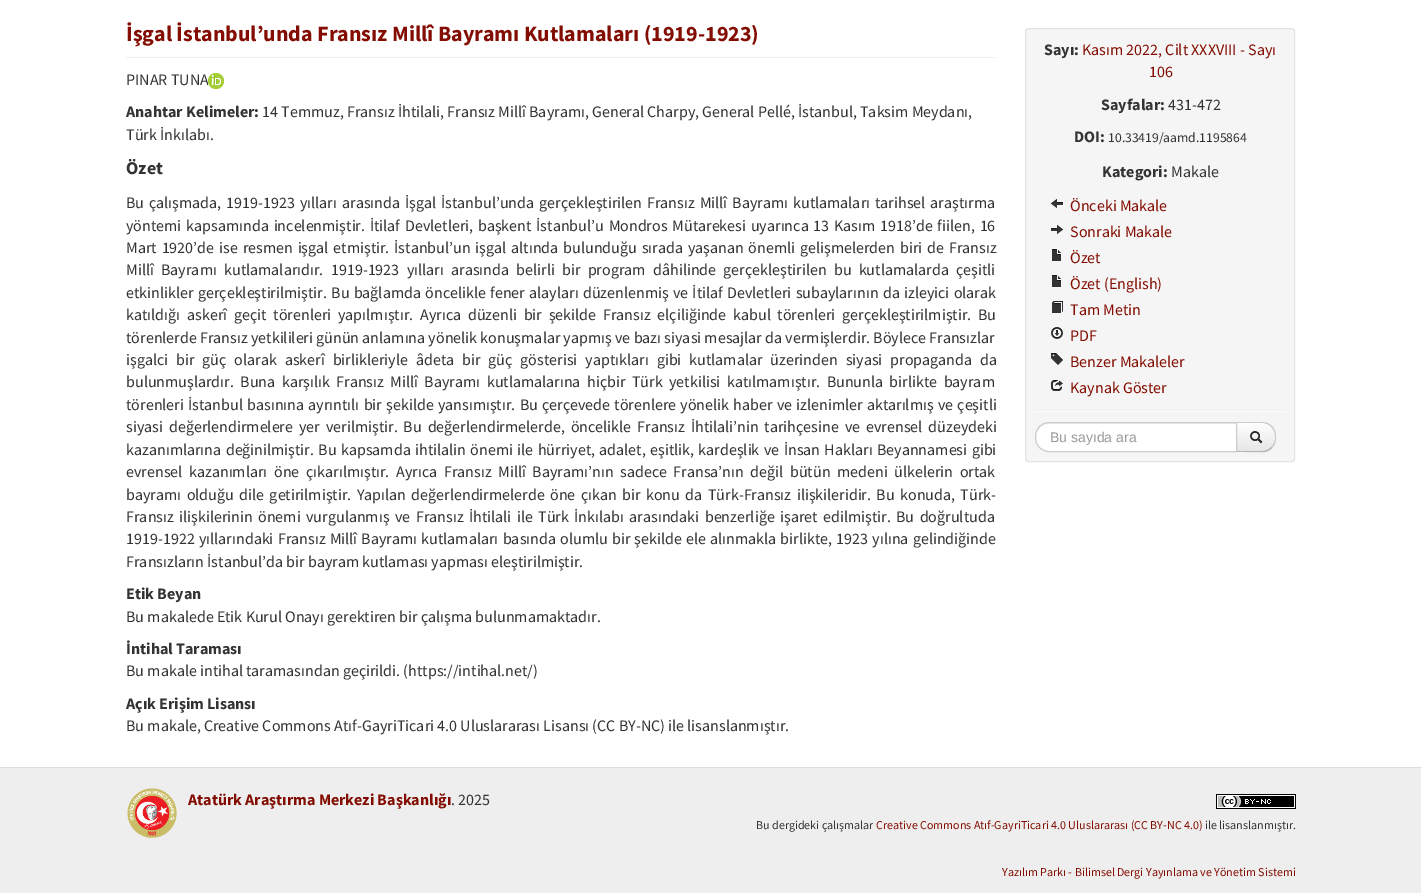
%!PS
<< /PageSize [1421 893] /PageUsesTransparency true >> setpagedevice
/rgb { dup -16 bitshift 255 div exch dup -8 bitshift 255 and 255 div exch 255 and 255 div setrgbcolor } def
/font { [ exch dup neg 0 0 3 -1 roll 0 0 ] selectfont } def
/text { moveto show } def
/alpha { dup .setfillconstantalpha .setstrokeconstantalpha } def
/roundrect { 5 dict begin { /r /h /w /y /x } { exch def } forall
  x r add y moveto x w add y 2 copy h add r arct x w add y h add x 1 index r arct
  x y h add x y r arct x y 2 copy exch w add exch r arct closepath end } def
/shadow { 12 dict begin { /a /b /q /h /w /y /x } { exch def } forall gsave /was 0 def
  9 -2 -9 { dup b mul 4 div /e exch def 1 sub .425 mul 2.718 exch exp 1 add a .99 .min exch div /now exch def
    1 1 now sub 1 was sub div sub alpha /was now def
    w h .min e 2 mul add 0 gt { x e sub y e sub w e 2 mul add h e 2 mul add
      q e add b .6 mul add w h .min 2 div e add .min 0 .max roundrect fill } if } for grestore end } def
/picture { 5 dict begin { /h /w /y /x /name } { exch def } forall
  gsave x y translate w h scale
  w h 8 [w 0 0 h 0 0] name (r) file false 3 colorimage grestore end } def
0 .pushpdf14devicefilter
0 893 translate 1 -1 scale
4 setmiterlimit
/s1 { /SourceSansPro-Bold 22 font 16#830D02 rgb } def
/s2 { /SourceSansPro-Regular 16 font 16#333333 rgb } def
/s3 { /SourceSansPro-Bold 16 font 16#333333 rgb } def
/s4 { /SourceSansPro-Bold 18 font 16#333333 rgb } def
/s5 { /SourceSansPro-Regular 16 font 16#830D02 rgb } def
/s6 { /SourceSansPro-Regular 13.6 font 16#333333 rgb } def
/s7 { /LiberationSans-Regular 14 font 16#999999 rgb } def
/s8 { /SourceSansPro-Bold 16 font 16#830D02 rgb } def
/s9 { /SourceSansPro-Regular 12 font 16#333333 rgb } def
/s10 { /SourceSansPro-Regular 12 font 16#830D02 rgb } def
16#FFFFFF rgb
0 0 1421 893 rectfill
16#EEEEEE rgb
126 57 869 1 rectfill
s1
(İşgal İstanbul’unda Fransız Millî Bayramı Kutlamaları \(1919-1923\)) 126 41 text
s2
(PINAR TUNA) 126 85 text
(pic1.raw) 208 73 16 16 picture
s3
(Anahtar Kelimeler:) 126 117 text
s2
(14 Temmuz, Fransız İhtilali, Fransız Millî Bayramı, General Charpy, General Pellé, İstanbul, Taksim Meydanı,) 262 117 text
(Türk İnkılabı.) 126 140 text
s4
(Özet) 126 174 text
/SourceSansPro-Regular 16 font
126 208 moveto 1.75 0 32 (Bu çalışmada, 1919-1923 yılları arasında İşgal İstanbul’unda gerçekleştirilen Fransız Millî Bayramı kutlamaları tarihsel araştırma) widthshow
126 231 moveto 1.6 0 32 (yöntemi kapsamında incelenmiştir. İtilaf Devletleri, başkent İstanbul’u Mondros Mütarekesi uyarınca 13 Kasım 1918’de fiilen, 16) widthshow
126 253 moveto 1.7 0 32 (Mart 1920’de ise resmen işgal etmiştir. İstanbul’un işgal altında bulunduğu sırada yaşanan önemli gelişmelerden biri de Fransız) widthshow
126 275 moveto 4.1 0 32 (Millî Bayramı kutlamalarıdır. 1919-1923 yılları arasında belirli bir program dâhilinde gerçekleştirilen bu kutlamalarda çeşitli) widthshow
126 298 moveto 1.1 0 32 (etkinlikler gerçekleştirilmiştir. Bu bağlamda öncelikle fener alayları düzenlenmiş ve İtilaf Devletleri subaylarının da izleyici olarak) widthshow
126 320 moveto 3.6 0 32 (katıldığı askerî geçit törenleri yapılmıştır. Ayrıca düzenli bir şekilde Fransız elçiliğinde kabul törenleri gerçekleştirilmiştir. Bu) widthshow
(törenlerde Fransız yetkilileri günün anlamına yönelik konuşmalar yapmış ve bazı siyasi mesajlar da vermişlerdir. Böylece Fransızlar) 126 343 text
126 365 moveto 4.75 0 32 (işgalci bir güç olarak askerî birlikleriyle âdeta bir güç gösterisi yaptıkları gibi kutlamalar üzerinden siyasi propaganda da) widthshow
126 387 moveto 3.25 0 32 (bulunmuşlardır. Buna karşılık Fransız Millî Bayramı kutlamalarına hiçbir Türk yetkilisi katılmamıştır. Bununla birlikte bayram) widthshow
126 410 moveto 1 0 32 (törenleri İstanbul basınına ayrıntılı bir şekilde yansımıştır. Bu çerçevede törenlere yönelik haber ve izlenimler aktarılmış ve çeşitli) widthshow
126 432 moveto 2.75 0 32 (siyasi değerlendirmelere yer verilmiştir. Bu değerlendirmelerde, öncelikle Fransız İhtilali’nin tarihçesine ve evrensel düzeydeki) widthshow
126 455 moveto 1.2 0 32 (kazanımlarına değinilmiştir. Bu kapsamda ihtilalin önemi ile hürriyet, adalet, eşitlik, kardeşlik ve İnsan Hakları Beyannamesi gibi) widthshow
126 477 moveto 3.4 0 32 (evrensel kazanımları öne çıkarılmıştır. Ayrıca Fransız Millî Bayramı’nın sadece Fransa’nın değil bütün medeni ülkelerin ortak) widthshow
126 500 moveto 2.25 0 32 (bayramı olduğu dile getirilmiştir. Yapılan değerlendirmelerde öne çıkan bir konu da Türk-Fransız ilişkileridir. Bu konuda, Türk-) widthshow
126 522 moveto 2.25 0 32 (Fransız ilişkilerinin önemi vurgulanmış ve Fransız İhtilali ile Türk İnkılabı arasındaki benzerliğe işaret edilmiştir. Bu doğrultuda) widthshow
126 544 moveto 1 0 32 (1919-1922 yıllarındaki Fransız Millî Bayramı kutlamaları basında olumlu bir şekilde ele alınmakla birlikte, 1923 yılına gelindiğinde) widthshow
(Fransızların İstanbul’da bir bayram kutlaması yapması eleştirilmiştir.) 126 567 text
s3
(Etik Beyan) 126 599 text
s2
(Bu makalede Etik Kurul Onayı gerektiren bir çalışma bulunmamaktadır.) 126 622 text
s3
(İntihal Taraması) 126 654 text
s2
(Bu makale intihal taramasından geçirildi. \(https://intihal.net/\)) 126 676 text
s3
(Açık Erişim Lisansı) 126 709 text
s2
(Bu makale, Creative Commons Atıf-GayriTicari 4.0 Uluslararası Lisansı \(CC BY-NC\) ile lisanslanmıştır.) 126 731 text
16#F5F5F5 rgb
1025.5 28.5 269 433 2.5 roundrect gsave fill grestore
16#E3E3E3 rgb
stroke
s3
(Sayı:) 1044 55 text
s5
(Kasım 2022, Cilt XXXVIII - Sayı) 1082 55 text
(106) 1149 77 text
s3
(Sayfalar:) 1101 110 text
s2
(431-472) 1168 110 text
s3
(DOI:) 1074 142 text
s6
(10.33419/aamd.1195864) 1108 142 text
s3
(Kategori:) 1102 177 text
s2
(Makale) 1171 177 text
(pic2.raw) 1051 199 12 10 picture
s5
(Önceki Makale) 1070 211 text
(pic3.raw) 1051 225 12 10 picture
(Sonraki Makale) 1070 237 text
(pic4.raw) 1052 249 9 12 picture
(Özet) 1070 263 text
(pic4.raw) 1052 275 9 12 picture
(Özet \(English\)) 1070 289 text
(pic5.raw) 1052 301 11 12 picture
(Tam Metin) 1070 315 text
(pic6.raw) 1051 327 12 12 picture
(PDF) 1070 341 text
(pic7.raw) 1051 353 12 12 picture
(Benzer Makaleler) 1070 367 text
(pic8.raw) 1051 380 12 11 picture
(Kaynak Göster) 1070 393 text
16#EEEEEE rgb
1035 410 250 1 rectfill
16#FFFFFF rgb
1035 411 250 1 rectfill
16#000000 rgb
1236 423 40 30 14 1 0.05 shadow
gsave
1236 422 moveto 1262 422 lineto 1269.5 422 1276 428.5 1276 436 curveto 1276 438 lineto 1276 445.5 1269.5 452 1262 452 curveto 1236 452 lineto closepath clip newpath
gsave 1237 423 moveto 1276 423 lineto 1276 451 lineto 1237 451 lineto closepath clip newpath
<< /ShadingType 2 /ColorSpace /DeviceRGB /Coords [1256 423 1256 451] /Extend [true true] /Function << /FunctionType 2 /Domain [0 1] /C0 [1 1 1] /C1 [0.902 0.902 0.902] /N 1 >> >> shfill grestore
grestore
16#CCCCCC rgb
1236 422 moveto 1237 423 lineto 1262 423 lineto 1265.5 423 1269 424.5 1271 427 curveto 1272 426 lineto 1269.5 423.5 1266 422 1262 422 curveto closepath fill
1276 438 moveto 1276 433.5 1275.5 429.5 1272 426 curveto 1271 427 lineto 1276.5 432 1276.5 442 1271 447 curveto 1272 448 lineto 1274.5 445.5 1276 442 1276 438 curveto closepath fill
16#B3B3B3 rgb
1262 452 moveto 1266 452 1269.5 450.5 1272 448 curveto 1271 447 lineto 1269 449.5 1265.5 451 1262 451 curveto 1237 451 lineto 1236 452 lineto closepath fill
16#FFFFFF rgb
1049 422 moveto 1237 422 lineto 1237 452 lineto 1049 452 lineto 1041.5 452 1035 445.5 1035 438 curveto 1035 436 lineto 1035 428.5 1041.5 422 1049 422 curveto closepath fill
16#ECECEC rgb
1049 424 moveto 1236 424 lineto 1236 423 lineto 1049 423 lineto 1042 423 1036 428 1036 435 curveto 1037 429 1042 424 1049 424 curveto closepath fill
16#CCCCCC rgb
1049 422.5 moveto 1236.5 422.5 lineto 1236.5 451.5 lineto 1049 451.5 lineto 1041.5 451.5 1035.5 445.5 1035.5 438 curveto 1035.5 436 lineto 1035.5 428.5 1041.5 422.5 1049 422.5 curveto closepath stroke
s7
(Bu sayıda ara) 1050 442 text
(pic9.raw) 1250 431 13 13 picture
16#EEEEEE rgb
0 768 1421 125 rectfill
16#DDDDDD rgb
0 767 1421 1 rectfill
(pic10.raw) 127 788 50 50 picture
s8
(Atatürk Araştırma Merkezi Başkanlığı) 188 805 text
s2
(. 2025) 451 805 text
(pic11.raw) 1216 794 80 15 picture
s9
(Bu dergideki çalışmalar) 756 829 text
s10
(Creative Commons Atıf-GayriTicari 4.0 Uluslararası \(CC BY-NC 4.0\)) 876 829 text
s9
(ile lisanslanmıştır.) 1205 829 text
s10
(Yazılım Parkı - Bilimsel Dergi Yayınlama ve Yönetim Sistemi) 1002 876 text
.poppdf14devicefilter showpage
